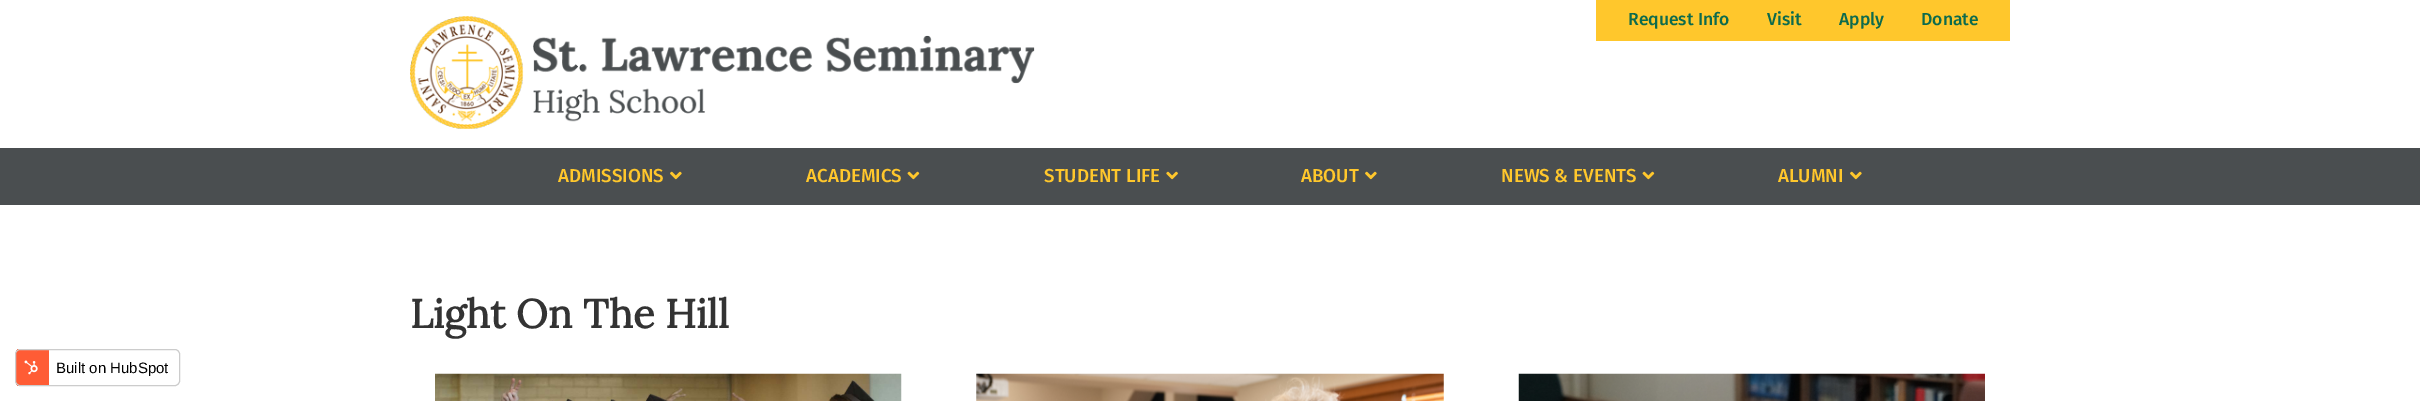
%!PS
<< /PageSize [2420 401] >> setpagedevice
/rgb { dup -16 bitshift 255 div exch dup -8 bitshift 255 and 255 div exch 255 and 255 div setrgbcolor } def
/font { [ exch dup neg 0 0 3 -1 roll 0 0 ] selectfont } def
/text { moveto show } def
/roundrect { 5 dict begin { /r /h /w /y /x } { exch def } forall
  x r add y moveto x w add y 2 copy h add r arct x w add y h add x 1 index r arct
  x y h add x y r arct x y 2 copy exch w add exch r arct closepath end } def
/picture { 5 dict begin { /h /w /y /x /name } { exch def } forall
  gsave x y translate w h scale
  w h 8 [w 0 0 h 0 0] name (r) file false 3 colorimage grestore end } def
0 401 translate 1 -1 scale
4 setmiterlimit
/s1 { /FiraSans-Medium 17.5 font 16#0D6B4D rgb } def
/s2 { /FiraSans-Medium 18.75 font 16#FFC72C rgb } def
/s3 { /Lora-Bold 40 font 16#333333 rgb } def
/s4 { /LiberationSans-Regular 15 font 16#000000 rgb } def
16#FFFFFF rgb
0 0 2420 401 rectfill
(pic1.raw) 410 16 625 113 picture
16#FFC72C rgb
1596 0 414 41 rectfill
s1
(Request Info) 1628 25 text
(Visit) 1767 25 text
(Apply) 1839 25 text
(Donate) 1921 25 text
16#4A4E50 rgb
0 148 2420 57 rectfill
s2
(ADMISSIONS) 558 182 text
(pic2.raw) 670 171 12 9 picture
(ACADEMICS) 806 182 text
(pic3.raw) 907 171 13 9 picture
(STUDENT LIFE) 1044 182 text
(pic4.raw) 1166 171 12 9 picture
(ABOUT) 1301 182 text
(pic2.raw) 1365 171 12 9 picture
(NEWS & EVENTS) 1501 182 text
(pic3.raw) 1642 171 13 9 picture
(ALUMNI) 1778 182 text
(pic2.raw) 1850 171 12 9 picture
s3
(Light On The Hill) 410 328 text
(pic5.raw) 435 373 467 28 picture
(pic6.raw) 976 373 468 28 picture
(pic7.raw) 1518 373 467 28 picture
gsave
15 349 165 37 5 roundrect clip newpath
16#FF5C35 rgb
16 349 33 37 rectfill
grestore
16#CCCCCC rgb
15.5 349.5 164 36 4.5 roundrect stroke
(pic8.raw) 24 360 14 15 picture
s4
(Built on HubSpot) 56 373 text
showpage
